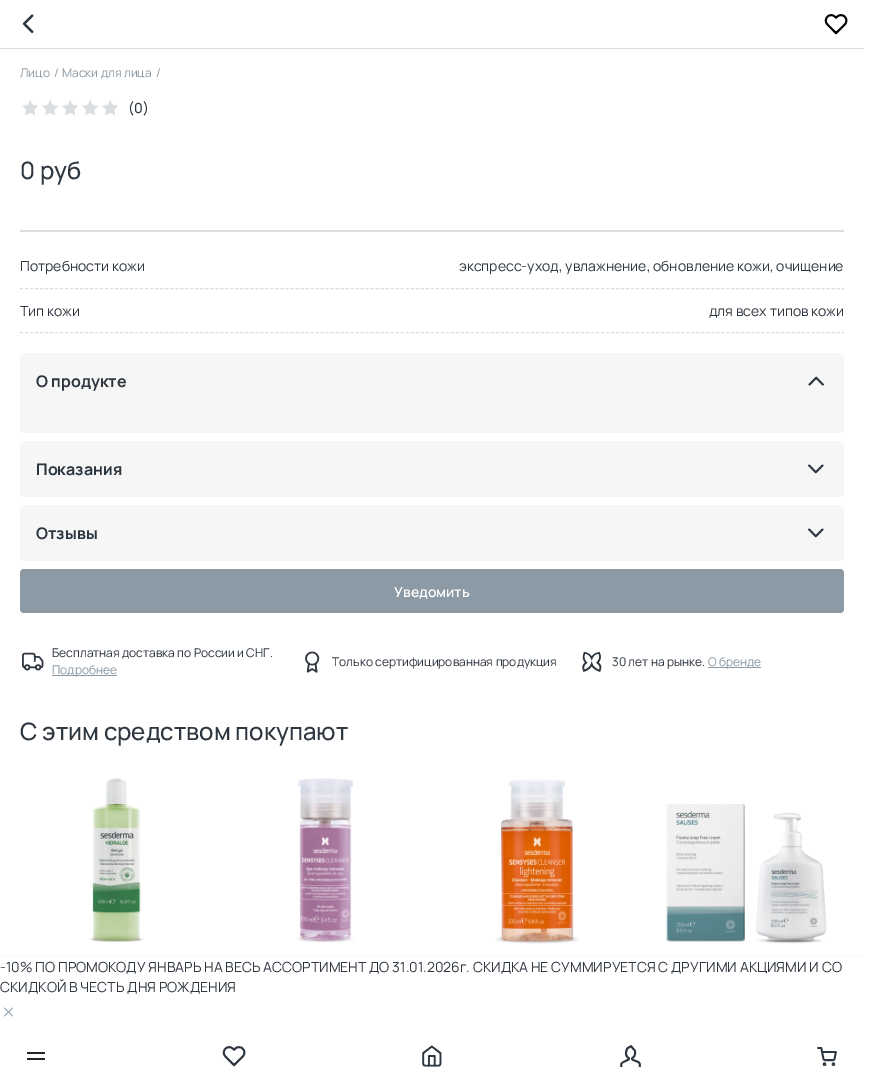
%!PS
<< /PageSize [879 1088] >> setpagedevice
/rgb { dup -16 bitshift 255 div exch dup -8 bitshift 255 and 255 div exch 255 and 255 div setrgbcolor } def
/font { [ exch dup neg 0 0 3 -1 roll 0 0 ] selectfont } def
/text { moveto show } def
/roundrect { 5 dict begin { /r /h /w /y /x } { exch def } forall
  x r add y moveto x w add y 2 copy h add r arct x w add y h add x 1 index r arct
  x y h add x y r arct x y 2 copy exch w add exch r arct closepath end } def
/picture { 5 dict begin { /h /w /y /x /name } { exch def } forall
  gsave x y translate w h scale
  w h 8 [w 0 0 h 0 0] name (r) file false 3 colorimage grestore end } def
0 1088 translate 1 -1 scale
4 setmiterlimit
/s1 { /Manrope-Regular 12 font 16#8C9AA5 rgb } def
/s2 { /Manrope-Medium 14 font 16#2E3640 rgb } def
/s3 { /Manrope-Medium 24 font 16#2E3640 rgb } def
/s4 { /Manrope-Regular 14 font 16#2E3640 rgb } def
/s5 { /Manrope-Bold 16 font 16#2E3640 rgb } def
/s6 { /Manrope-SemiBold 14 font 16#FFFFFF rgb } def
/s7 { /Manrope-Regular 12 font 16#2E3640 rgb } def
16#FFFFFF rgb
0 0 879 1088 rectfill
16#DADEE1 rgb
0 48 864 1 rectfill
(pic1.raw) 22 14 12 20 picture
(pic2.raw) 824 14 24 21 picture
s1
(Лицо) 20 77 text
(/) 54 77 text
(Маски для лица) 62 77 text
(/) 156 77 text
(pic3.raw) 22 100 16 16 picture
(pic3.raw) 42 100 16 16 picture
(pic3.raw) 62 100 16 16 picture
(pic3.raw) 82 100 16 16 picture
(pic3.raw) 102 100 16 16 picture
s2
(\(0\)) 128 113 text
s3
(0 руб) 20 179 text
16#DADEE1 rgb
20 230 824 2 rectfill
[3 2.01] 0 setdash
20 288.5 moveto 844 288.5 lineto stroke
s4
(Потребности кожи) 20 271 text
(экспресс-уход, увлажнение, обновление кожи, очищение) 459 271 text
16#DADEE1 rgb
20 332.5 moveto 844 332.5 lineto stroke
s4
(Тип кожи) 20 316 text
(для всех типов кожи) 709 316 text
16#F6F6F6 rgb
20 353 824 80 4 roundrect fill
s5
(О продукте) 36 387 text
(pic4.raw) 808 376 16 10 picture
16#F6F6F6 rgb
20 441 824 56 4 roundrect fill
s5
(Показания) 36 475 text
(pic5.raw) 808 464 16 10 picture
16#F6F6F6 rgb
20 505 824 56 4 roundrect fill
s5
(Отзывы) 36 539 text
(pic5.raw) 808 528 16 10 picture
16#8C9AA5 rgb
20 569 824 44 4 roundrect fill
s6
(Уведомить) 394 597 text
(pic6.raw) 22 652 22 19 picture
s7
(Бесплатная доставка по России и СНГ.) 52 657 text
16#8C9AA5 rgb
52 675 65 1 rectfill
(Подробнее) 52 674 text
(pic7.raw) 305 651 15 22 picture
s7
(Только сертифицированная продукция) 332 666 text
(pic8.raw) 582 651 20 21 picture
(30 лет на рынке.) 612 666 text
16#8C9AA5 rgb
708 667 53 1 rectfill
(О бренде) 708 666 text
s3
(С этим средством покупают) 20 740 text
(pic9.raw) 89 778 55 164 picture
(pic10.raw) 297 778 57 165 picture
(pic11.raw) 495 779 84 165 picture
(pic12.raw) 665 804 162 140 picture
16#F8F8F8 rgb
0 956 864 1 rectfill
s4
(-10% ПО ПРОМОКОДУ ЯНВАРЬ НА ВЕСЬ АССОРТИМЕНТ ДО 31.01.2026г. СКИДКА НЕ СУММИРУЕТСЯ С ДРУГИМИ АКЦИЯМИ И СО) 0 972 text
(СКИДКОЙ В ЧЕСТЬ ДНЯ РОЖДЕНИЯ) 0 992 text
(pic13.raw) 4 1007 9 10 picture
16#232323 rgb
27 1052 18 2 rectfill
27 1058 18 2 rectfill
(pic14.raw) 222 1046 24 21 picture
(pic15.raw) 422 1045 20 22 picture
(pic16.raw) 620 1045 21 22 picture
(pic17.raw) 817 1047 20 19 picture
showpage
